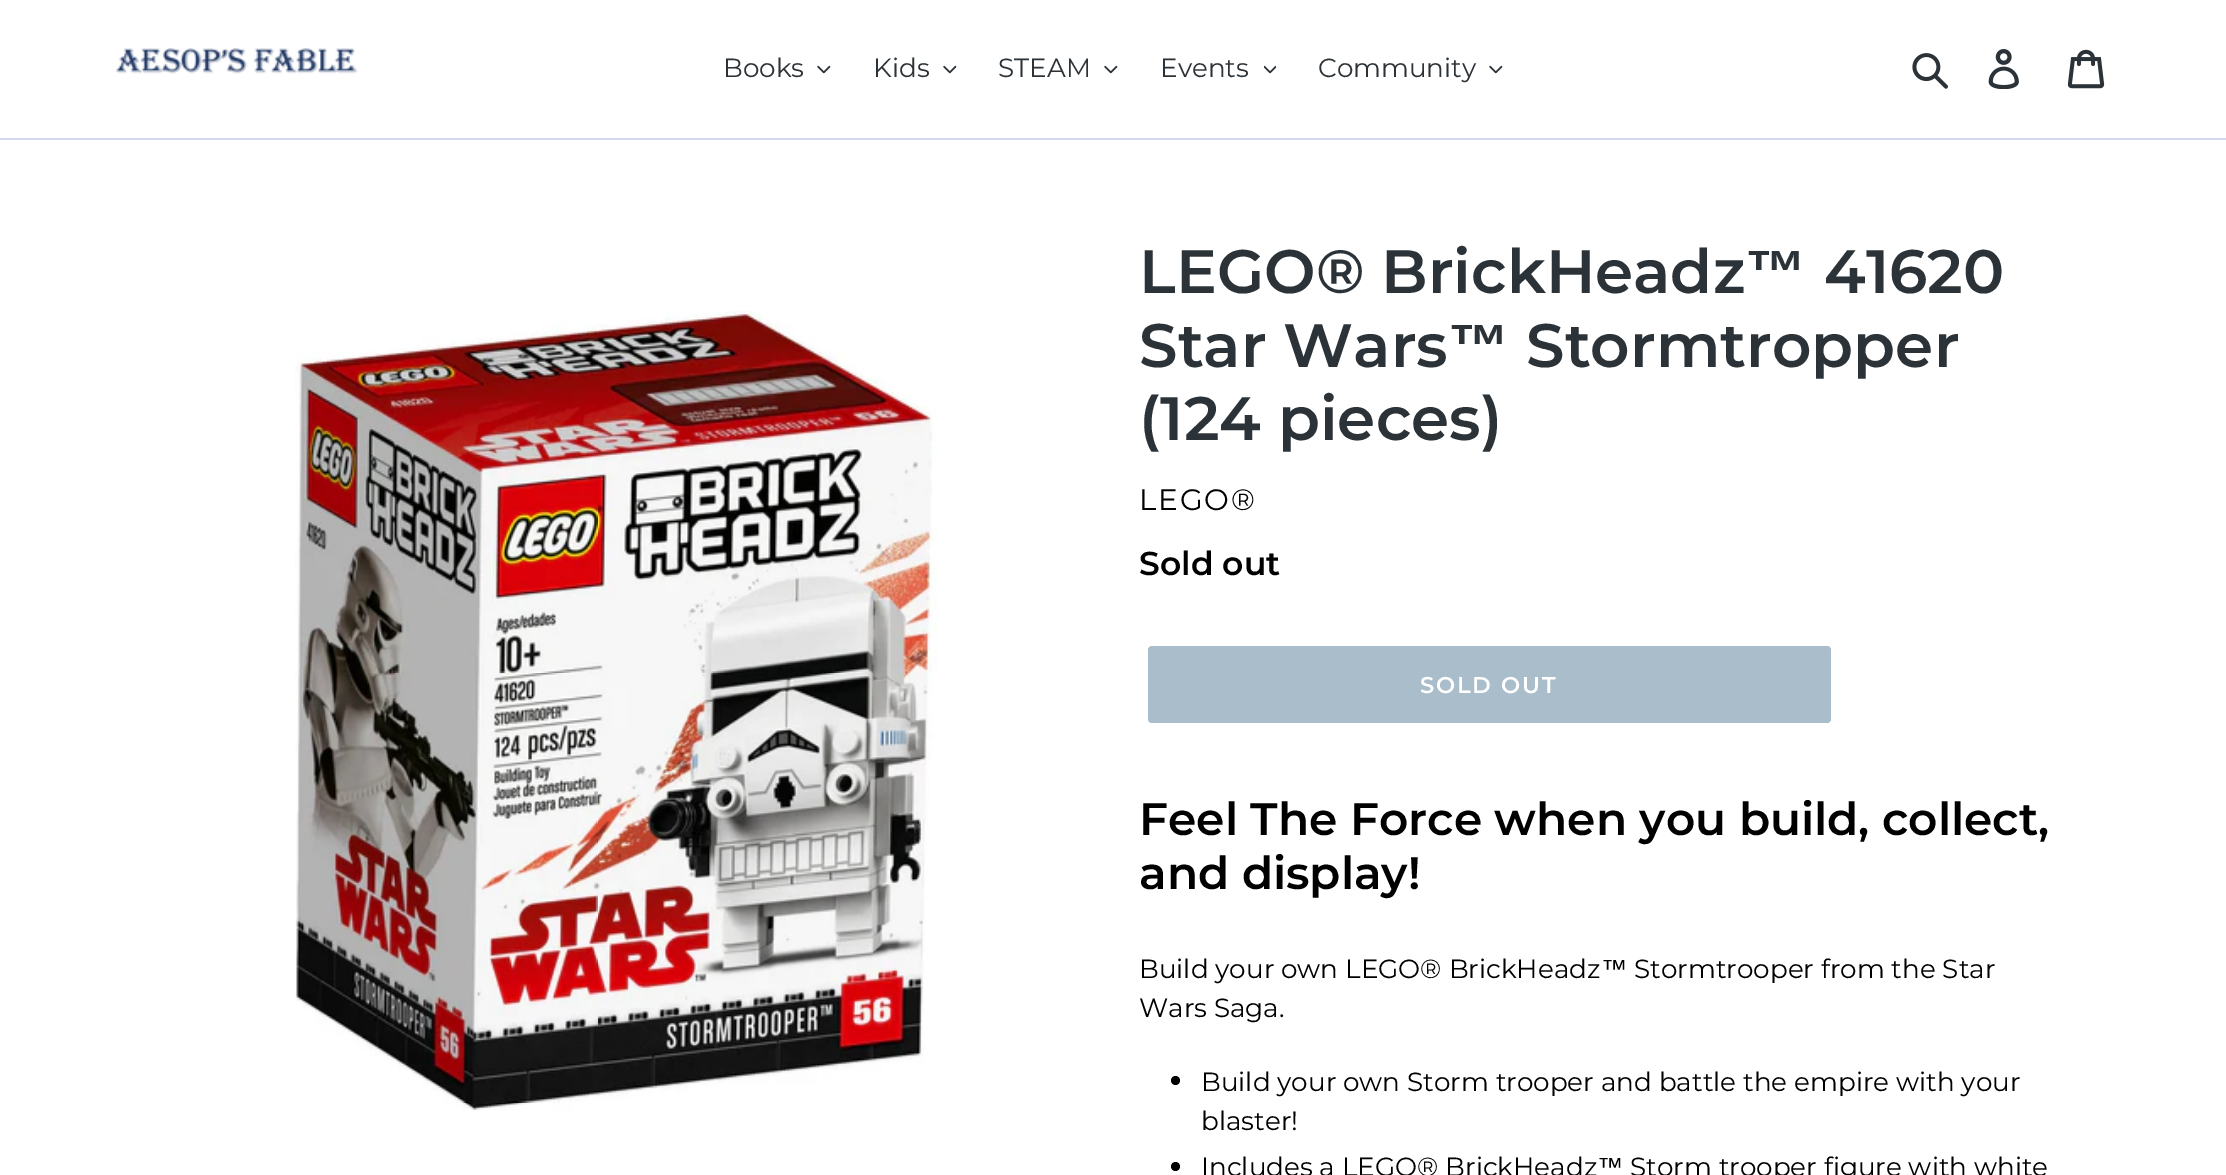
%!PS
<< /PageSize [2226 1175] >> setpagedevice
/rgb { dup -16 bitshift 255 div exch dup -8 bitshift 255 and 255 div exch 255 and 255 div setrgbcolor } def
/font { [ exch dup neg 0 0 3 -1 roll 0 0 ] selectfont } def
/text { moveto show } def
/circle { newpath 0 360 arc closepath } def
/roundrect { 5 dict begin { /r /h /w /y /x } { exch def } forall
  x r add y moveto x w add y 2 copy h add r arct x w add y h add x 1 index r arct
  x y h add x y r arct x y 2 copy exch w add exch r arct closepath end } def
/picture { 5 dict begin { /h /w /y /x /name } { exch def } forall
  gsave x y translate w h scale
  w h 8 [w 0 0 h 0 0] name (r) file false 3 colorimage grestore end } def
0 1175 translate 1 -1 scale
4 setmiterlimit
/s1 { /Montserrat-Regular 26.25 font 16#2C3338 rgb } def
/s2 { /Montserrat-SemiBold 61.25 font 16#2C3338 rgb } def
/s3 { /LiberationSans-Bold 61.25 font 16#2C3338 rgb } def
/s4 { /Montserrat-SemiBold 33 font 16#000000 rgb } def
/s5 { /Montserrat-SemiBold 45.5 font 16#000000 rgb } def
/s6 { /Montserrat-Regular 26.25 font 16#000000 rgb } def
/s7 { /LiberationSans-Regular 26.25 font 16#000000 rgb } def
16#FFFFFF rgb
0 0 2226 1175 rectfill
16#D2D8F3 rgb
0 138 2226 2 rectfill
(pic1.raw) 116 48 242 26 picture
s1
(Books) 723 77 text
(pic2.raw) 817 65 14 9 picture
(Kids) 873 77 text
(pic2.raw) 943 65 14 9 picture
(STEAM) 998 77 text
(pic2.raw) 1104 65 14 9 picture
(Events) 1160 77 text
(pic3.raw) 1264 65 12 9 picture
(Community) 1318 77 text
(pic2.raw) 1489 65 14 9 picture
(pic4.raw) 1912 53 36 36 picture
(pic5.raw) 1988 49 31 40 picture
(pic6.raw) 2067 49 38 40 picture
(pic7.raw) 295 311 643 800 picture
s2
(LEGO® BrickHeadz) 1139 293 text
s3
(™) 1745 293 text
s2
(41620) 1824 293 text
(Star Wars) 1139 367 text
s3
(™) 1448 367 text
s2
(Stormtropper) 1526 367 text
(\(124 pieces\)) 1139 440 text
/Montserrat-Regular 29.5 font
16#000000 rgb
1139 510 moveto 1.75 0 (LEGO®) ashow
s4
(Sold out) 1139 575 text
16#AABDCB rgb
1148 646 683 77 4 roundrect fill
/Montserrat-SemiBold 22.75 font
16#FFFFFF rgb
1420 693 moveto 1.75 0 (SOLD OUT) ashow
s5
(Feel The Force when you build, collect,) 1139 835 text
(and display!) 1139 889 text
s6
(Build your own LEGO® BrickHeadz) 1139 978 text
s7
(™) 1601 978 text
s6
(Stormtrooper from the Star) 1634 978 text
(Wars Saga.) 1139 1017 text
1175.5 1080.5 4.5 circle fill
(Build your own Storm trooper and battle the empire with your) 1201 1091 text
(blaster!) 1201 1130 text
1175.5 1166.5 4.5 circle fill
(Includes a LEGO® BrickHeadz) 1201 1176 text
s7
(™) 1597 1176 text
s6
(Storm trooper figure with white) 1630 1176 text
showpage
